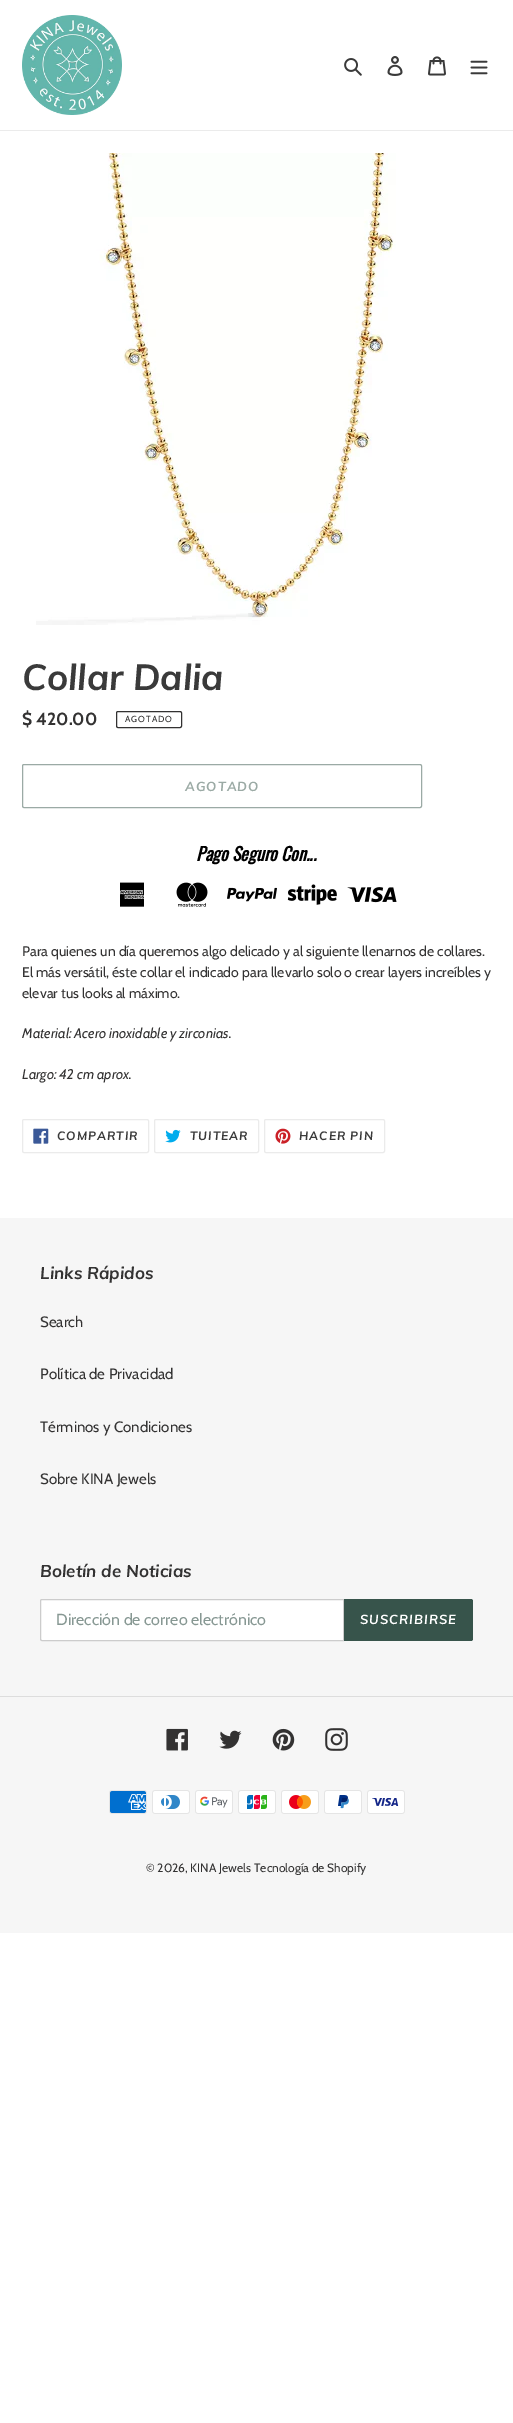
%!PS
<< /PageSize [513 2423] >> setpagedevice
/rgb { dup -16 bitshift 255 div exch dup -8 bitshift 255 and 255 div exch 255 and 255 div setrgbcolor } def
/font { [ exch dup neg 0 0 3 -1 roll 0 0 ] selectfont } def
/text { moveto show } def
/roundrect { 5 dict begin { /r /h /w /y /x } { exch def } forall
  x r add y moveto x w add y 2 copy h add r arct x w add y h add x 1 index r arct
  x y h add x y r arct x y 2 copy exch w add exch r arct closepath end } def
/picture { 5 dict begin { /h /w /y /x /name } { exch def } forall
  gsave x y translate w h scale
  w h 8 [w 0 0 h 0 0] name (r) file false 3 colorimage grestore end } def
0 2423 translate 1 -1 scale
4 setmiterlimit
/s1 { /Muli-BoldItalic 36 font 16#3A3A3A rgb } def
/s2 { /Cabin-Bold 17.5 font 16#333232 rgb } def
/s3 { /Oswald-BoldItalic 18 font 16#000000 rgb } def
/s4 { /Cabin-Regular 14 font 16#333232 rgb } def
/s5 { /Cabin-Italic 14 font 16#333232 rgb } def
/s6 { /Muli-BoldItalic 17 font 16#333232 rgb } def
/s7 { /Cabin-Regular 15 font 16#333232 rgb } def
/s8 { /Cabin-Regular 16 font 16#879893 rgb } def
/s9 { /Cabin-Regular 12 font 16#333232 rgb } def
16#FFFFFF rgb
0 0 513 2423 rectfill
16#EBEBEB rgb
0 130 513 1 rectfill
(pic1.raw) 22 15 100 100 picture
(pic2.raw) 344 58 18 18 picture
(pic3.raw) 387 56 16 20 picture
(pic4.raw) 428 56 18 20 picture
(pic5.raw) 470 60 18 15 picture
(pic6.raw) 36 153 360 472 picture
s1
(Collar Dalia) 22 690 text
s2
($ 420.00) 22 725 text
116.5 711.5 65 16 1.5 roundrect stroke
/Cabin-Regular 8.75 font
125 722 moveto 1 0 (AGOTADO) ashow
16#9BAAA5 rgb
22.5 764.5 399 43 1.5 roundrect stroke
/Muli-BoldItalic 13 font
185 791 moveto 1 0 (AGOTADO) ashow
s3
(Pago Seguro Con...) 196 861 text
(pic7.raw) 120 882 24 25 picture
(pic8.raw) 176 882 32 25 picture
(pic9.raw) 227 887 50 15 picture
(pic10.raw) 287 884 50 21 picture
(pic11.raw) 347 887 50 16 picture
s4
(Para quienes un día queremos algo delicado y al siguiente llenarnos de collares.) 22 956 text
(El más versátil, éste collar el indicado para llevarlo solo o crear layers increíbles y) 22 977 text
(elevar tus looks al máximo.) 22 998 text
s5
(Material: Acero inoxidable y zirconias.) 22 1038 text
(Largo: 42 cm aprox.) 22 1079 text
16#EBEBEB rgb
22.5 1119.5 126 33 1.5 roundrect stroke
(pic12.raw) 33 1128 16 16 picture
/Muli-BoldItalic 12 font
16#3A3A3A rgb
57 1140 moveto 1 0 (COMPARTIR) ashow
16#EBEBEB rgb
154.5 1119.5 104 33 1.5 roundrect stroke
(pic13.raw) 165 1129 16 14 picture
16#3A3A3A rgb
190 1140 moveto 1 0 (TUITEAR) ashow
16#EBEBEB rgb
264.5 1119.5 120 33 1.5 roundrect stroke
(pic14.raw) 275 1128 16 16 picture
16#3A3A3A rgb
299 1140 moveto 1 0 (HACER PIN) ashow
16#F6F6F6 rgb
0 1218 513 715 rectfill
s6
(Links Rápidos) 40 1279 text
s7
(Search) 40 1327 text
(Política de Privacidad) 40 1379 text
(Términos y Condiciones) 40 1432 text
(Sobre KINA Jewels) 40 1484 text
s6
(Boletín de Noticias) 40 1577 text
16#FFFFFF rgb
42 1599.5 moveto 343.5 1599.5 lineto 343.5 1640.5 lineto 42 1640.5 lineto 41 1640.5 40.5 1640 40.5 1639 curveto 40.5 1601 lineto 40.5 1600 41 1599.5 42 1599.5 curveto closepath gsave fill grestore
16#CCCCCC rgb
stroke
s8
(Dirección de correo electrónico) 56 1625 text
16#37544B rgb
344 1599 moveto 471 1599 lineto 472 1599 473 1600 473 1601 curveto 473 1639 lineto 473 1640 472 1641 471 1641 curveto 344 1641 lineto closepath fill
/Muli-BoldItalic 13 font
16#FFFFFF rgb
360 1624 moveto 1 0 (SUSCRIBIRSE) ashow
16#DDDDDD rgb
0 1696 513 1 rectfill
(pic15.raw) 166 1728 22 23 picture
(pic16.raw) 219 1730 23 19 picture
(pic17.raw) 272 1728 23 23 picture
(pic18.raw) 325 1728 23 23 picture
(pic19.raw) 109 1790 38 24 picture
(pic20.raw) 152 1790 38 24 picture
(pic21.raw) 195 1790 38 24 picture
(pic22.raw) 238 1790 38 24 picture
(pic23.raw) 281 1790 38 24 picture
(pic24.raw) 324 1790 38 24 picture
(pic25.raw) 367 1790 38 24 picture
s9
(© 2026, KINA Jewels) 146 1872 text
(Tecnología de Shopify) 254 1872 text
showpage
